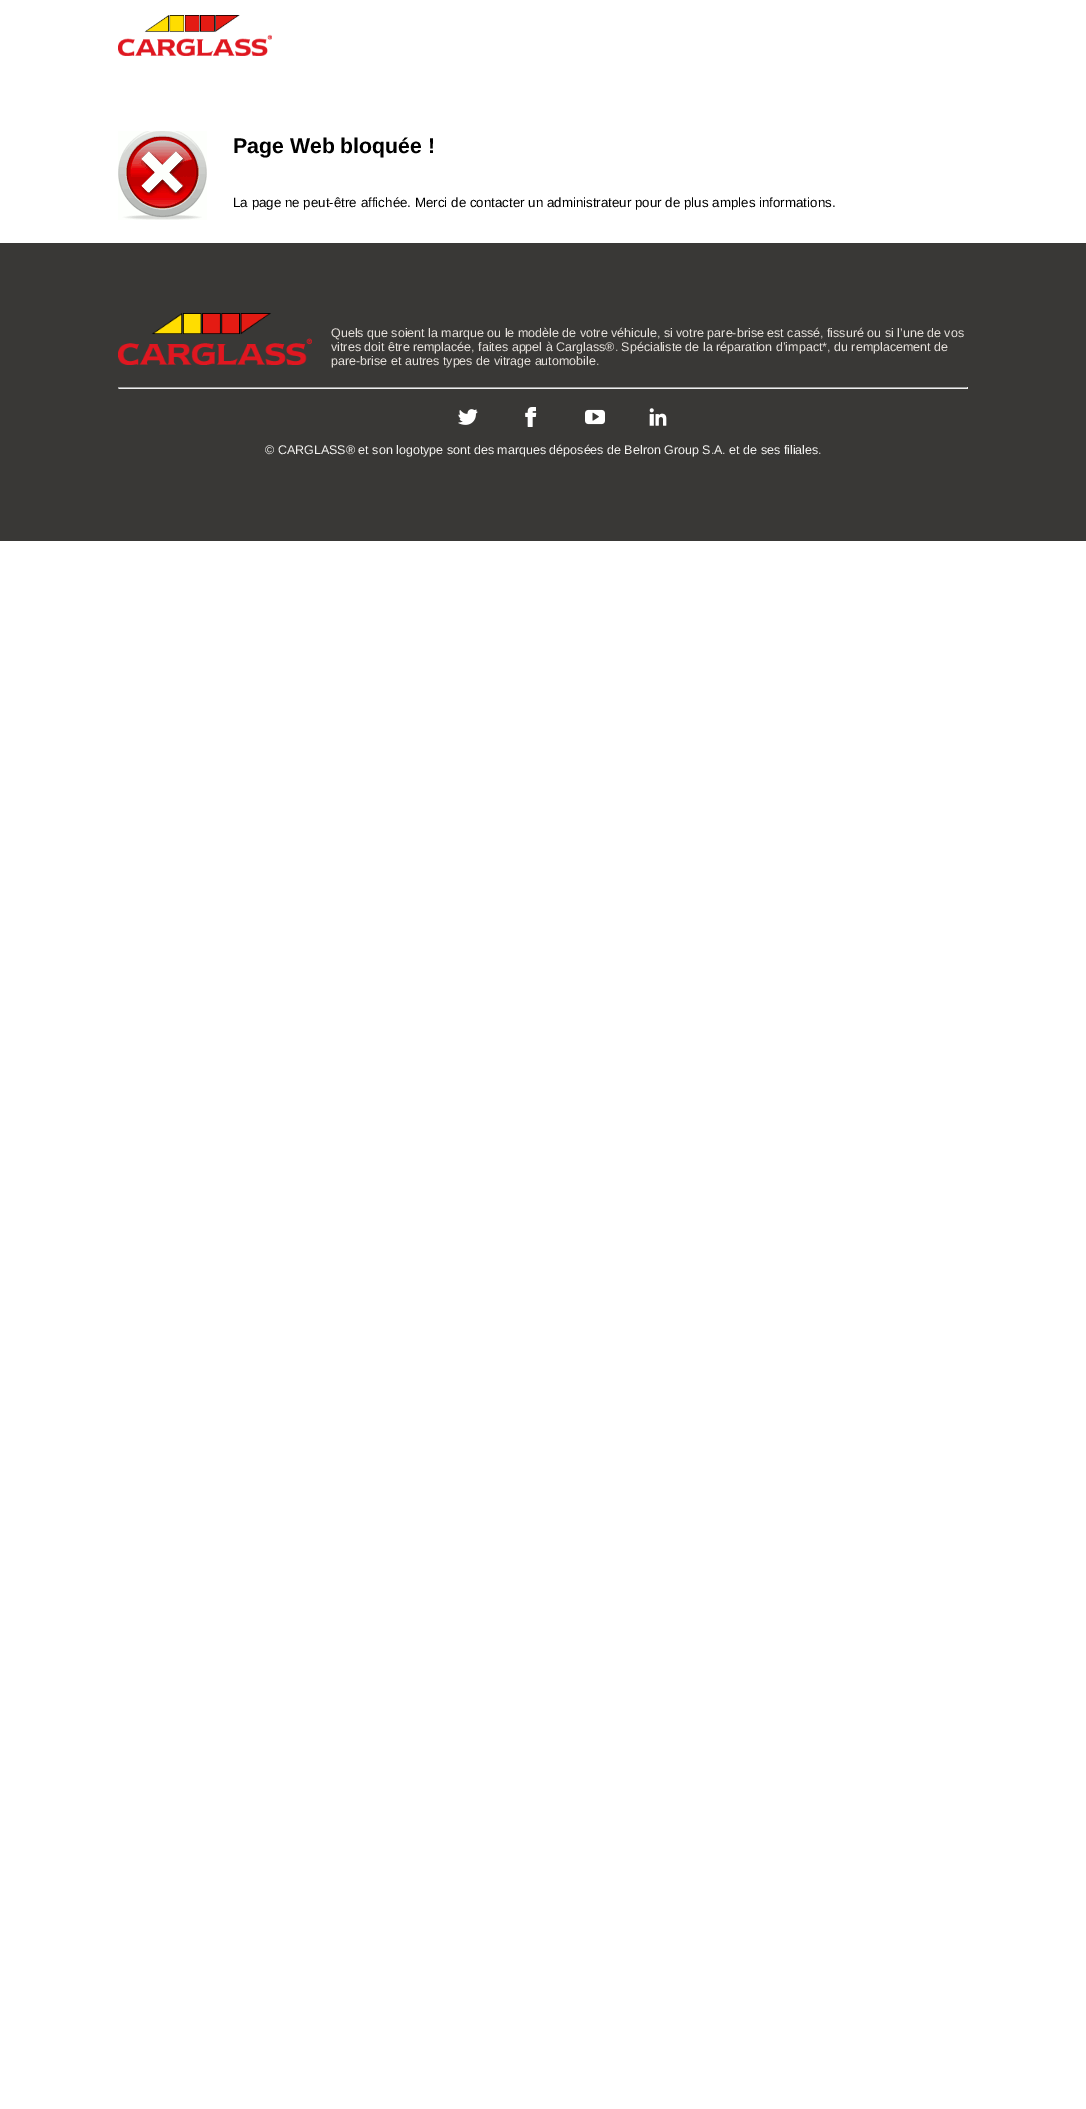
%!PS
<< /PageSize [1086 2109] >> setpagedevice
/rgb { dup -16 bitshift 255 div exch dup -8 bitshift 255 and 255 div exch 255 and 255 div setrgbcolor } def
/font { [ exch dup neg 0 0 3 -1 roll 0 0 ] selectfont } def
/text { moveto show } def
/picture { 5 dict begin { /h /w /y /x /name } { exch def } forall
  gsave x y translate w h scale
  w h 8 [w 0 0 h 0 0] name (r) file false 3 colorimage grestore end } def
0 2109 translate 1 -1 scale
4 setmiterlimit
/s1 { /LiberationSans-Bold 21.25 font 16#000000 rgb } def
/s2 { /LiberationSans-Regular 13.35 font 16#000000 rgb } def
/s3 { /LiberationSans-Regular 12.5 font 16#E5E0DB rgb } def
/s4 { /LiberationSans-Regular 12.5 font 16#F3F2F0 rgb } def
16#FFFFFF rgb
0 0 1086 2109 rectfill
(pic1.raw) 118 15 154 41 picture
(pic2.raw) 118 131 89 89 picture
s1
(Page Web bloquée !) 233 153 text
s2
(La page ne peut-être affichée. Merci de contacter un administrateur pour de plus amples informations.) 233 207 text
16#393836 rgb
0 243 1086 298 rectfill
(pic3.raw) 118 313 194 52 picture
s3
(Quels que soient la marque ou le modèle de votre véhicule, si votre pare-brise est cassé, fissuré ou si l’une de vos) 331 337 text
(vitres doit être remplacée, faites appel à Carglass®. Spécialiste de la réparation d’impact*, du remplacement de) 331 351 text
(pare-brise et autres types de vitrage automobile.) 331 365 text
16#9F9F9F rgb
118 387 850 1 rectfill
16#EEEEEE rgb
967 387 1 2 rectfill
118 388 850 1 rectfill
16#9F9F9F rgb
118 387 1 2 rectfill
(pic4.raw) 458 409 20 16 picture
(pic5.raw) 525 407 12 20 picture
(pic6.raw) 585 409 20 16 picture
(pic7.raw) 649 408 18 18 picture
s4
(© CARGLASS® et son logotype sont des marques déposées de Belron Group S.A. et de ses filiales.) 265 454 text
showpage
